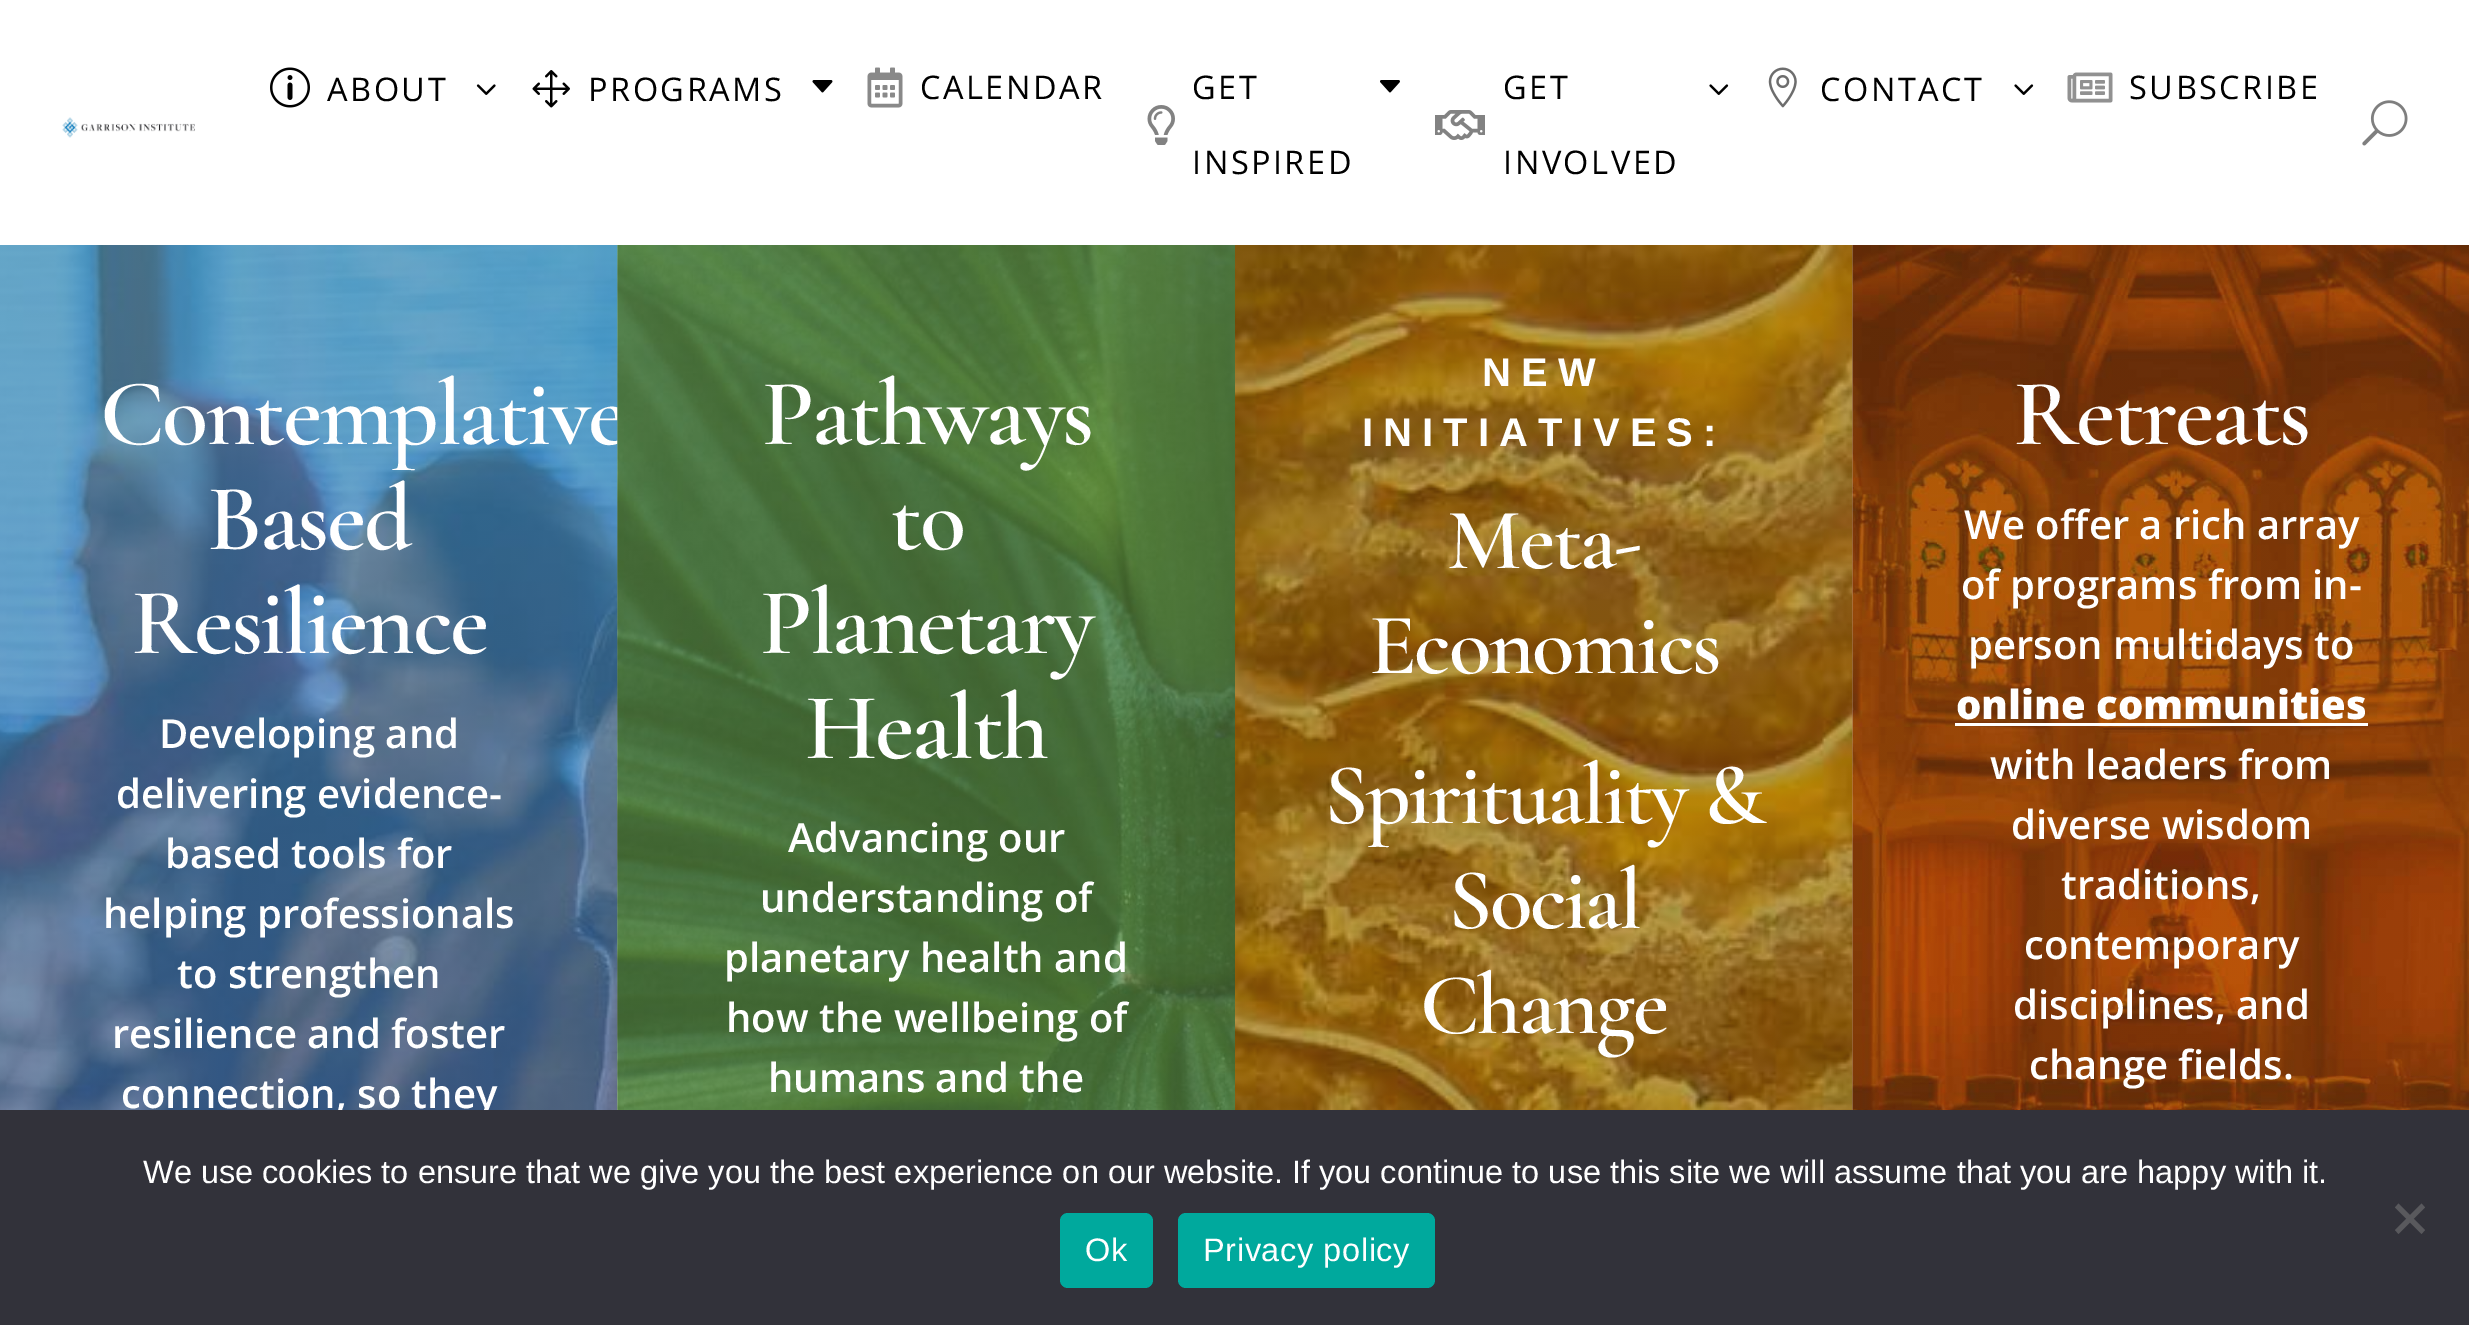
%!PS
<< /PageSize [2469 1325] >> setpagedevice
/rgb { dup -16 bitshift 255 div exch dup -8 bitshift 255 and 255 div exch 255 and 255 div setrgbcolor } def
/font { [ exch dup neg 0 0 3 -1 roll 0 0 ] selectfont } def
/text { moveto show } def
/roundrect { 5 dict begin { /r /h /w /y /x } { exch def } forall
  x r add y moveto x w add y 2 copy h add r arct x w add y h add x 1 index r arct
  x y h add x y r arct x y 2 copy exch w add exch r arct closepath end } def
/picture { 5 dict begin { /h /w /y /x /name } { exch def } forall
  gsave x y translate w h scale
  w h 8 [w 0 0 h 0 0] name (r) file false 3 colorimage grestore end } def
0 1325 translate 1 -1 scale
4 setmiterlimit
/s1 { /OpenSans-SemiBold 40 font 16#FFFFFF rgb } def
/s2 { /OpenSans-ExtraBold 40 font 16#FFFFFF rgb } def
/s3 { /LiberationSans-Regular 32.5 font 16#FFFFFF rgb } def
16#FFFFFF rgb
0 0 2469 1325 rectfill
(pic1.raw) 62 117 133 21 picture
(pic2.raw) 270 67 40 41 picture
/OpenSans-Regular 32.5 font
16#000000 rgb
327 101 moveto 2.5 0 (ABOUT) ashow
(pic3.raw) 476 84 20 11 picture
(pic4.raw) 532 70 38 38 picture
588 101 moveto 2.5 0 (PROGRAMS) ashow
(pic5.raw) 812 80 21 13 picture
(pic6.raw) 867 67 36 41 picture
920 99 moveto 2.5 0 (CALENDAR) ashow
(pic7.raw) 1147 105 28 40 picture
1192 99 moveto 2.5 0 (GET) ashow
1192 174 moveto 2.5 0 (INSPIRED) ashow
(pic8.raw) 1380 80 20 13 picture
(pic9.raw) 1435 110 50 30 picture
1503 99 moveto 2.5 0 (GET) ashow
1503 174 moveto 2.5 0 (INVOLVED) ashow
(pic10.raw) 1709 84 20 11 picture
(pic11.raw) 1768 67 29 41 picture
1820 101 moveto 2.5 0 (CONTACT) ashow
(pic10.raw) 2014 84 20 11 picture
(pic12.raw) 2067 72 46 31 picture
2129 99 moveto 2.5 0 (SUBSCRIBE) ashow
(pic13.raw) 2362 100 46 46 picture
(pic14.raw) 0 245 618 865 picture
/CormorantGaramond-SemiBold 95 font
16#FFFFFF rgb
100 444 moveto -2.5 0 (Contemplative) ashow
207 549 moveto -2.5 0 (Based) ashow
131 653 moveto -2.5 0 (Resilience) ashow
s1
(Developing and) 159 748 text
(delivering evidence-) 116 808 text
(based tools for) 165 868 text
(helping professionals) 103 928 text
(to strengthen) 177 988 text
(resilience and foster) 112 1048 text
(connection, so they) 121 1108 text
(pic15.raw) 617 245 618 865 picture
/CormorantGaramond-SemiBold 95 font
762 444 moveto -2.5 0 (Pathways) ashow
890 549 moveto -2.5 0 (to) ashow
760 653 moveto -2.5 0 (Planetary) ashow
805 758 moveto -2.5 0 (Health) ashow
s1
(Advancing our) 788 852 text
(understanding of) 760 912 text
(planetary health and) 724 972 text
(how the wellbeing of) 726 1032 text
(humans and the) 768 1092 text
(pic16.raw) 1235 245 618 865 picture
/LiberationSans-Bold 40 font
1482 386 moveto 10 0 (NEW) ashow
1362 446 moveto 10 0 (INITIATIVES:) ashow
/CormorantGaramond-SemiBold 87.5 font
1447 568 moveto -2.5 0 (Meta-) ashow
1369 673 moveto -2.5 0 (Economics) ashow
1324 823 moveto -2.5 0 (Spirituality &) ashow
1448 928 moveto -2.5 0 (Social) ashow
1420 1033 moveto -2.5 0 (Change) ashow
(pic17.raw) 1852 245 617 865 picture
/CormorantGaramond-SemiBold 95 font
2013 444 moveto -2.5 0 (Retreats) ashow
s1
(We offer a rich array) 1964 539 text
(of programs from in-) 1961 599 text
(person multidays to) 1968 659 text
s2
(online communities) 1956 719 text
1955 723 413 3 rectfill
s1
(with leaders from) 1990 779 text
(diverse wisdom) 2011 839 text
(traditions,) 2061 899 text
(contemporary) 2024 959 text
(disciplines, and) 2013 1019 text
(change fields.) 2029 1079 text
16#32323A rgb
0 1110 2469 215 rectfill
s3
(We use cookies to ensure that we give you the best experience on our website. If you continue to use this site we will assume that you are happy with it.) 143 1183 text
16#59595D rgb
2421.5 1203.5 moveto 2425 1207.5 lineto 2398.5 1234 lineto 2395 1230 lineto closepath fill
2395 1207.5 moveto 2398.5 1203.5 lineto 2425 1230 lineto 2421.5 1234 lineto closepath fill
16#00A99D rgb
1060 1213 93 75 8 roundrect fill
16#FFFFFF rgb
1085 1261 moveto 0.6 0 (Ok) ashow
16#00A99D rgb
1178 1213 257 75 8 roundrect fill
16#FFFFFF rgb
1203 1261 moveto 0.6 0 (Privacy policy) ashow
showpage
